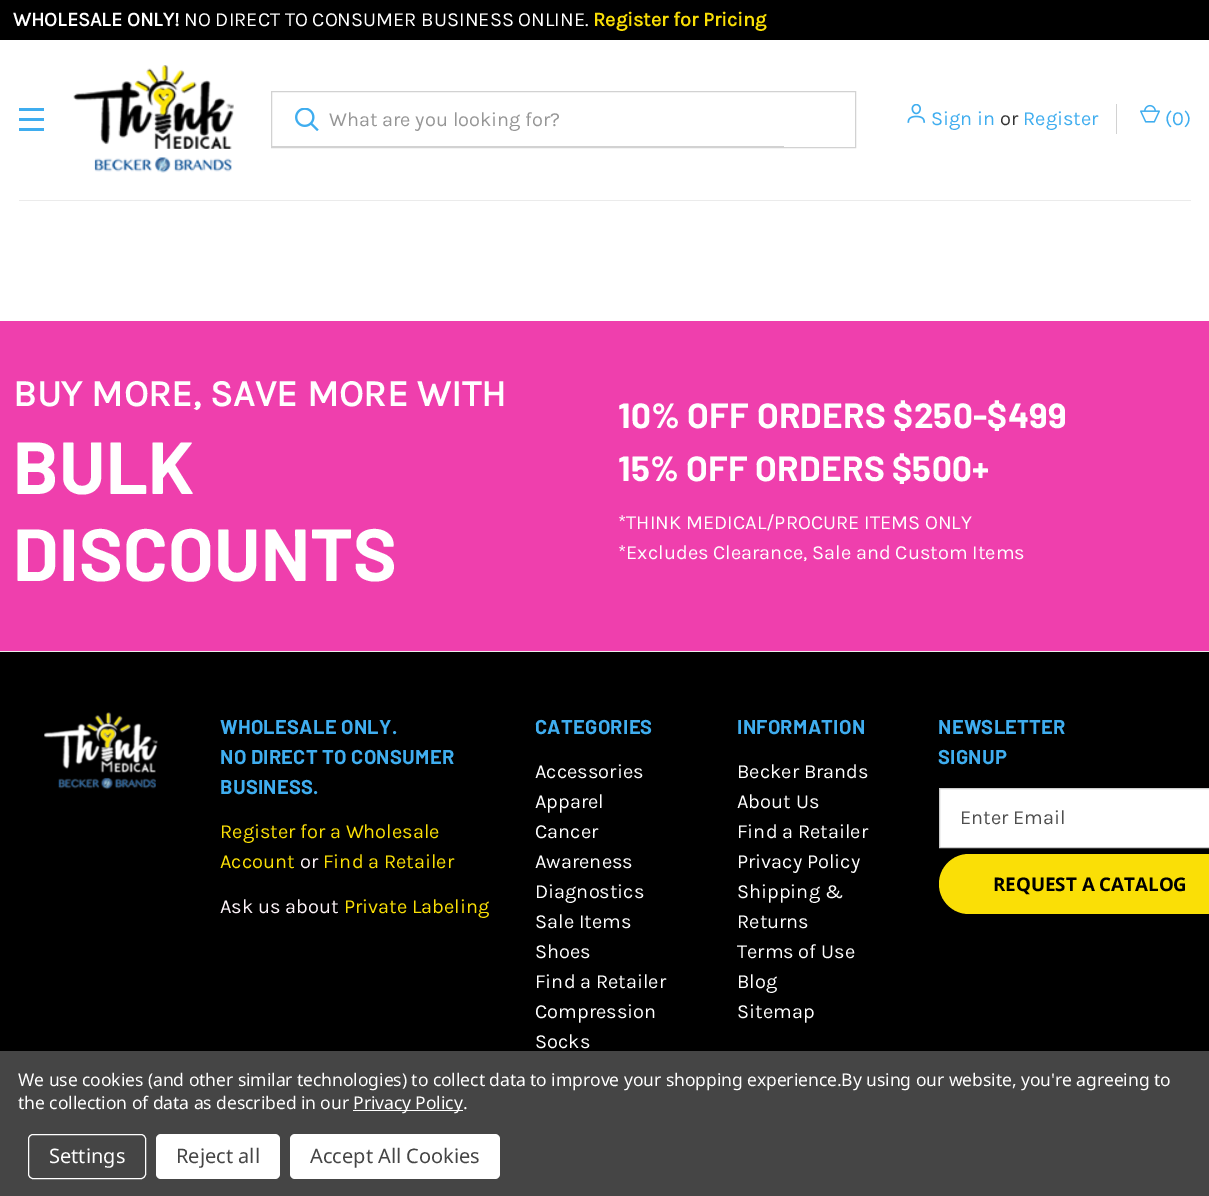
%!PS
<< /PageSize [1209 1196] >> setpagedevice
/rgb { dup -16 bitshift 255 div exch dup -8 bitshift 255 and 255 div exch 255 and 255 div setrgbcolor } def
/font { [ exch dup neg 0 0 3 -1 roll 0 0 ] selectfont } def
/text { moveto show } def
/roundrect { 5 dict begin { /r /h /w /y /x } { exch def } forall
  x r add y moveto x w add y 2 copy h add r arct x w add y h add x 1 index r arct
  x y h add x y r arct x y 2 copy exch w add exch r arct closepath end } def
/picture { 5 dict begin { /h /w /y /x /name } { exch def } forall
  gsave x y translate w h scale
  w h 8 [w 0 0 h 0 0] name (r) file false 3 colorimage grestore end } def
0 1196 translate 1 -1 scale
4 setmiterlimit
/s1 { /Karla-Bold 20 font 16#FFFFFF rgb } def
/s2 { /Karla-Regular 20 font 16#FFFFFF rgb } def
/s3 { /Karla-Bold 20 font 16#FADF06 rgb } def
/s4 { /Karla-Regular 20 font 16#969696 rgb } def
/s5 { /Karla-Regular 20 font 16#3FADEF rgb } def
/s6 { /Karla-Regular 20 font 16#333333 rgb } def
/s7 { /Karla-Regular 20 font 16#FADF06 rgb } def
/s8 { /Karla-Regular 20 font 16#FEF4FA rgb } def
/s9 { /Karla-Regular 20 font 16#4E4E4E rgb } def
/s10 { /OpenSans-Bold 18.75 font 16#000000 rgb } def
/s11 { /NotoSans-Regular 20 font 16#FFFFFF rgb } def
/s12 { /NotoSans-Regular 20 font 16#454545 rgb } def
16#FFFFFF rgb
0 0 1209 1196 rectfill
16#000000 rgb
0 0 1209 40 rectfill
s1
(WHOLESALE ONLY!) 13 26 text
s2
(NO DIRECT TO CONSUMER BUSINESS ONLINE.) 184 26 text
s3
(Register for Pricing) 593 26 text
16#3FADEF rgb
19 118 25 3 rectfill
19 108 25 3 rectfill
19 128 25 3 rectfill
(pic1.raw) 73 65 161 108 picture
16#D2D2D2 rgb
271.5 91.5 584 56 rectstroke
(pic2.raw) 295 108 24 23 picture
s4
(What are you looking for?) 329 126 text
16#D2D2D2 rgb
271 146 513 1 rectfill
(pic3.raw) 907 104 19 19 picture
s5
(Sign in) 931 125 text
s6
(or) 1000 125 text
s5
(Register) 1023 125 text
16#D2D2D2 rgb
1116 104 1 30 rectfill
(pic4.raw) 1140 104 20 19 picture
s5
(\(0\)) 1165 125 text
16#EBEBEB rgb
19 200 1172 1 rectfill
16#EF3FAD rgb
0 321 1209 330 rectfill
/Karla-Bold 37.5 font
16#FFFFFF rgb
13 406 moveto 0.3 0 (BUY MORE, SAVE MORE WITH) ashow
/Barlow-Bold 73.75 font
13 494 moveto 0.3 0 (BULK) ashow
13 581 moveto 0.3 0 (DISCOUNTS) ashow
/Barlow-Bold 35 font
618 428 moveto 0.3 0 (10% OFF ORDERS $250-$499) ashow
618 481 moveto 0.3 0 (15% OFF ORDERS $500+) ashow
s2
(*THINK MEDICAL/PROCURE ITEMS ONLY) 618 529 text
(*Excludes Clearance, Sale and Custom Items) 618 559 text
16#000000 rgb
0 652 1209 399 rectfill
16#EBEBEB rgb
0 651 1209 1 rectfill
(pic5.raw) 44 712 114 78 picture
/Barlow-Bold 20 font
16#3FADEF rgb
220 734 moveto 0.3 0 (WHOLESALE ONLY.) ashow
220 764 moveto 0.3 0 (NO DIRECT TO CONSUMER) ashow
220 794 moveto 0.3 0 (BUSINESS.) ashow
s7
(Register for a Wholesale) 220 838 text
(Account) 220 868 text
s8
(or) 300 868 text
s7
(Find a Retailer) 323 868 text
s8
(Ask us about) 220 913 text
s7
(Private Labeling) 344 913 text
/Barlow-Bold 20 font
16#3FADEF rgb
535 734 moveto 0.3 0 (CATEGORIES) ashow
s2
(Accessories) 535 778 text
(Apparel) 535 808 text
(Cancer) 535 838 text
(Awareness) 535 868 text
(Diagnostics) 535 898 text
(Sale Items) 535 928 text
(Shoes) 535 958 text
(Find a Retailer) 535 988 text
(Compression) 535 1018 text
(Socks) 535 1048 text
/Barlow-Bold 20 font
16#3FADEF rgb
737 734 moveto 0.3 0 (INFORMATION) ashow
s2
(Becker Brands) 737 778 text
(About Us) 737 808 text
(Find a Retailer) 737 838 text
(Privacy Policy) 737 868 text
(Shipping &) 737 898 text
(Returns) 737 928 text
(Terms of Use) 737 958 text
(Blog) 737 988 text
(Sitemap) 737 1018 text
/Barlow-Bold 20 font
16#3FADEF rgb
938 734 moveto 0.3 0 (NEWSLETTER) ashow
938 764 moveto 0.3 0 (SIGNUP) ashow
16#FFFFFF rgb
939.5 788.5 moveto 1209.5 788.5 lineto 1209.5 847.5 lineto 939.5 847.5 lineto closepath gsave fill grestore
16#CCCCCC rgb
stroke
s9
(Enter Email) 960 824 text
16#FADF06 rgb
939 854 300 60 30 roundrect fill
s10
(REQUEST A CATALOG) 993 891 text
16#454545 rgb
0 1051 1209 145 rectfill
/NotoSans-Regular 17.5 font
16#FFFFFF rgb
18 1086 moveto -0.06 0 (We use cookies \(and other similar technologies\) to collect data to improve your shopping experience.By using our website, you're agreeing to) ashow
18 1109 moveto -0.06 0 (the collection of data as described in our) ashow
353 1110 110 1 rectfill
353 1109 moveto -0.06 0 (Privacy Policy.) ashow
28.5 1134.5 117 44 4.5 roundrect stroke
s11
(Settings) 49 1163 text
156 1134 124 45 5 roundrect fill
s12
(Reject all) 176 1163 text
16#FFFFFF rgb
290 1134 210 45 5 roundrect fill
s12
(Accept All Cookies) 310 1163 text
showpage
